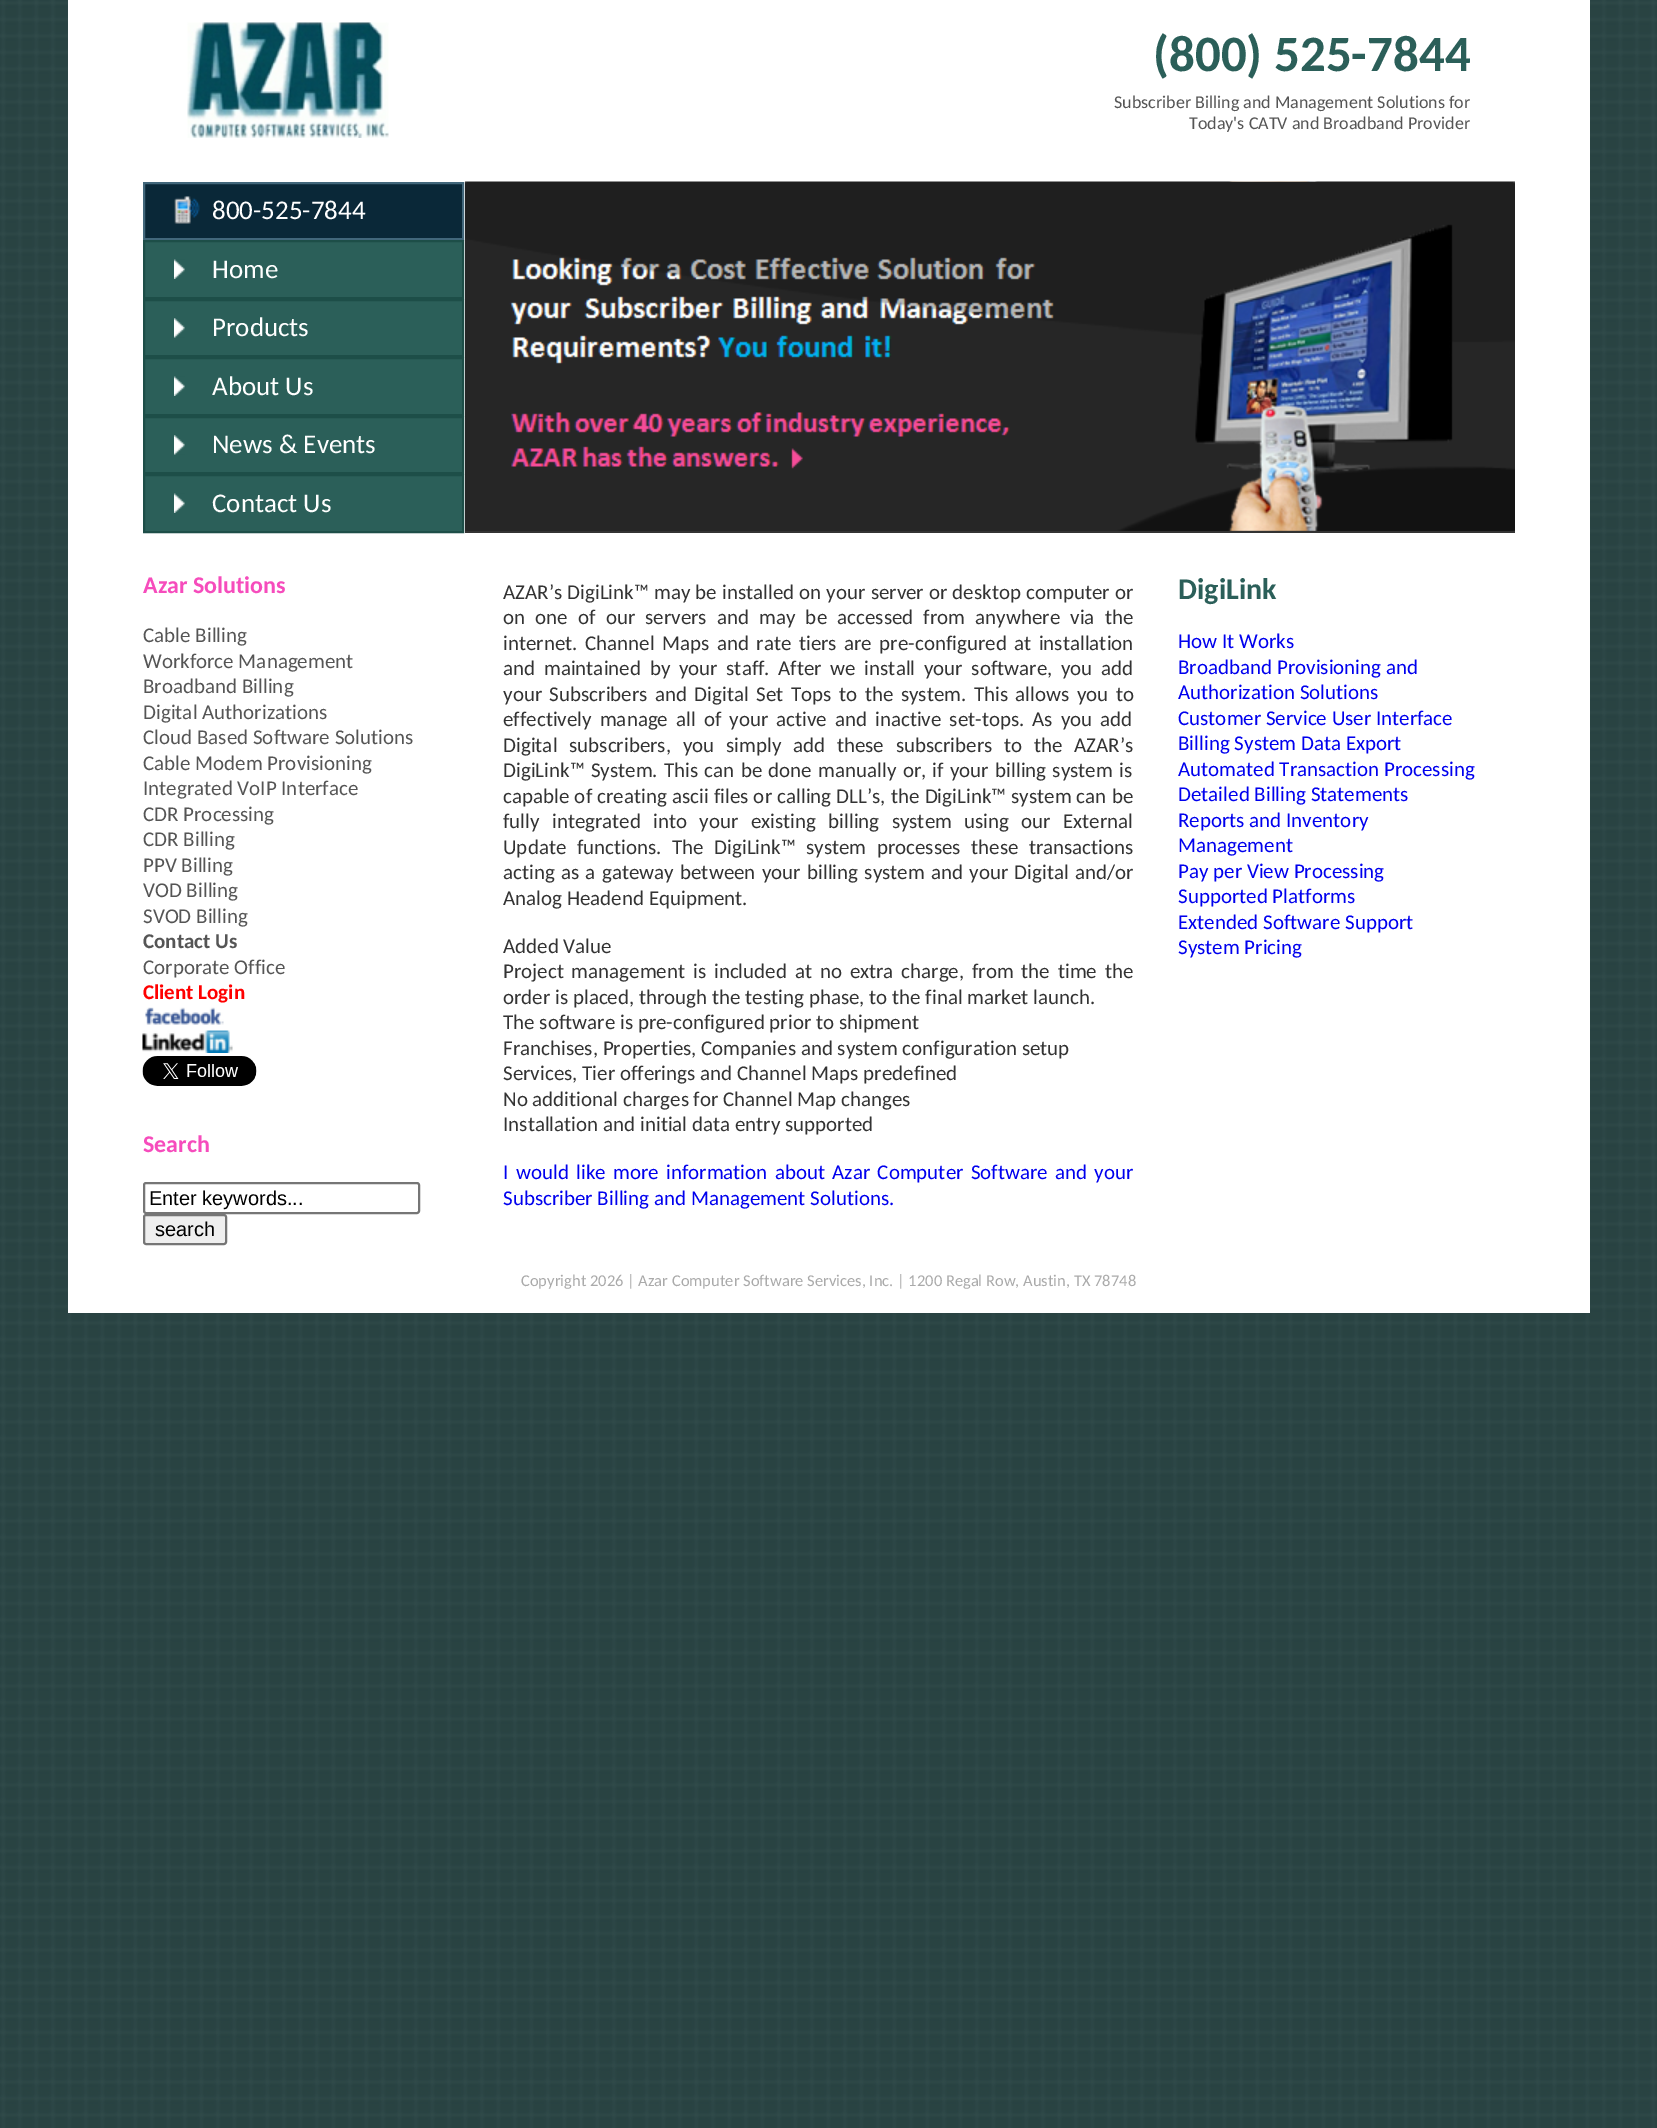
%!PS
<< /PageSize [1657 2128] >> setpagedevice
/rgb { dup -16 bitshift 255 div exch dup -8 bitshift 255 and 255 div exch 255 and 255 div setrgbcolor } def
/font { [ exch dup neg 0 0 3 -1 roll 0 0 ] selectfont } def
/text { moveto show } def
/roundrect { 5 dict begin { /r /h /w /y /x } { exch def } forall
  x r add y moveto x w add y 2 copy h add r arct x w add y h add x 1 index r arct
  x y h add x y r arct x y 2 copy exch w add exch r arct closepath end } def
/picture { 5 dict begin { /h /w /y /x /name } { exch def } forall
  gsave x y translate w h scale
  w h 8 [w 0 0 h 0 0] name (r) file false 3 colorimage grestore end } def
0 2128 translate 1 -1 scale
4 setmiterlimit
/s1 { /Carlito-Bold 51 font 16#2B5F59 rgb } def
/s2 { /Carlito-Regular 18 font 16#555555 rgb } def
/s3 { /Carlito-Regular 27 font 16#FFFFFF rgb } def
/s4 { /Carlito-Bold 24 font 16#F64CBC rgb } def
/s5 { /Carlito-Regular 21 font 16#555555 rgb } def
/s6 { /Carlito-Bold 21 font 16#555555 rgb } def
/s7 { /Carlito-Bold 21 font 16#FF0000 rgb } def
/s8 { /LiberationSans-Regular 20 font 16#000000 rgb } def
/s9 { /Carlito-Regular 21 font 16#333333 rgb } def
/s10 { /Carlito-Regular 21 font 16#0000EE rgb } def
/s11 { /Carlito-Bold 30 font 16#2B5F59 rgb } def
/s12 { /Carlito-Regular 16.5 font 16#AAAAAA rgb } def
16#FFFFFF rgb
0 0 1657 2128 rectfill
(pic1.raw) 0 0 1657 2128 picture
68 0 1522 1313 rectfill
(pic2.raw) 187 22 202 116 picture
s1
(\(800\) 525-7844) 1153 71 text
s2
(Subscriber Billing and Management Solutions for) 1114 108 text
(Today's CATV and Broadband Provider) 1189 129 text
16#0A2838 rgb
145 184 317 54 rectfill
(pic3.raw) 174 196 26 28 picture
16#42677B rgb
2 setlinewidth
144 183 319 56 rectstroke
s3
(800-525-7844) 212 219 text
16#2B5F59 rgb
145 242 317 55 rectfill
(pic4.raw) 174 259 11 20 picture
16#1D4E48 rgb
144 241 319 57 rectstroke
s3
(Home) 212 278 text
16#2B5F59 rgb
145 301 317 54 rectfill
(pic5.raw) 174 318 11 20 picture
16#1D4E48 rgb
144 300 319 56 rectstroke
s3
(Products) 212 336 text
16#2B5F59 rgb
145 359 317 55 rectfill
(pic4.raw) 174 376 11 20 picture
16#1D4E48 rgb
144 358 319 57 rectstroke
s3
(About Us) 212 395 text
16#2B5F59 rgb
145 418 317 54 rectfill
(pic5.raw) 174 435 11 20 picture
16#1D4E48 rgb
144 417 319 56 rectstroke
s3
(News & Events) 212 453 text
16#2B5F59 rgb
145 476 317 55 rectfill
(pic4.raw) 174 493 11 20 picture
16#1D4E48 rgb
144 475 319 57 rectstroke
s3
(Contact Us) 212 512 text
s4
(Azar Solutions) 143 593 text
s5
(Cable Billing) 143 642 text
(Workforce Management) 143 668 text
(Broadband Billing) 143 693 text
(Digital Authorizations) 143 719 text
(Cloud Based Software Solutions) 143 744 text
(Cable Modem Provisioning) 143 770 text
(Integrated VoIP Interface) 143 795 text
(CDR Processing) 143 821 text
(CDR Billing) 143 846 text
(PPV Billing) 143 872 text
(VOD Billing) 143 897 text
(SVOD Billing) 143 923 text
s6
(Contact Us) 143 948 text
s5
(Corporate Office) 143 974 text
s7
(Client Login) 143 999 text
(pic6.raw) 145 1007 79 18 picture
(pic7.raw) 142 1030 91 23 picture
(pic8.raw) 142 1056 115 30 picture
s4
(Search) 143 1152 text
16#767676 rgb
144 1183 275 30 2 roundrect stroke
s8
(Enter keywords...) 149 1205 text
16#EFEFEF rgb
144 1215 82 29 2 roundrect gsave fill grestore
16#767676 rgb
stroke
s8
(search) 155 1236 text
(pic9.raw) 465 181 1050 350 picture
16#333333 rgb
465 531 1050 2 rectfill
/Carlito-Regular 21 font
503 599 moveto 0.4 0 32 (AZAR’s DigiLink™ may be installed on your server or desktop computer or) widthshow
503 624 moveto 5.4 0 32 (on one of our servers and may be accessed from anywhere via the) widthshow
503 650 moveto 2.75 0 32 (internet. Channel Maps and rate tiers are pre-configured at installation) widthshow
503 675 moveto 3.9 0 32 (and maintained by your staff. After we install your software, you add) widthshow
503 701 moveto 2.75 0 32 (your Subscribers and Digital Set Tops to the system. This allows you to) widthshow
503 726 moveto 3.25 0 32 (effectively manage all of your active and inactive set-tops. As you add) widthshow
503 752 moveto 7 0 32 (Digital subscribers, you simply add these subscribers to the AZAR’s) widthshow
503 777 moveto 1.5 0 32 (DigiLink™ System. This can be done manually or, if your billing system is) widthshow
503 803 moveto 0.4 0 32 (capable of creating ascii files or calling DLL’s, the DigiLink™ system can be) widthshow
503 828 moveto 7.5 0 32 (fully integrated into your existing billing system using our External) widthshow
503 854 moveto 5.75 0 32 (Update functions. The DigiLink™ system processes these transactions) widthshow
503 879 moveto 1.5 0 32 (acting as a gateway between your billing system and your Digital and/or) widthshow
(Analog Headend Equipment.) 503 905 text
(Added Value) 503 953 text
503 978 moveto 3.1 0 32 (Project management is included at no extra charge, from the time the) widthshow
(order is placed, through the testing phase, to the final market launch.) 503 1004 text
(The software is pre-configured prior to shipment) 503 1029 text
(Franchises, Properties, Companies and system configuration setup) 503 1055 text
(Services, Tier offerings and Channel Maps predefined) 503 1080 text
(No additional charges for Channel Map changes) 503 1106 text
(Installation and initial data entry supported) 503 1131 text
16#0000EE rgb
503 1179 moveto 2.6 0 32 (I would like more information about Azar Computer Software and your) widthshow
(Subscriber Billing and Management Solutions.) 503 1205 text
s11
(DigiLink) 1178 599 text
s10
(How It Works) 1178 648 text
(Broadband Provisioning and) 1178 674 text
(Authorization Solutions) 1178 699 text
(Customer Service User Interface) 1178 725 text
(Billing System Data Export) 1178 750 text
(Automated Transaction Processing) 1178 776 text
(Detailed Billing Statements) 1178 801 text
(Reports and Inventory) 1178 827 text
(Management) 1178 852 text
(Pay per View Processing) 1178 878 text
(Supported Platforms) 1178 903 text
(Extended Software Support) 1178 929 text
(System Pricing) 1178 954 text
s12
(Copyright 2026 | Azar Computer Software Services, Inc. | 1200 Regal Row, Austin, TX 78748) 521 1286 text
showpage
